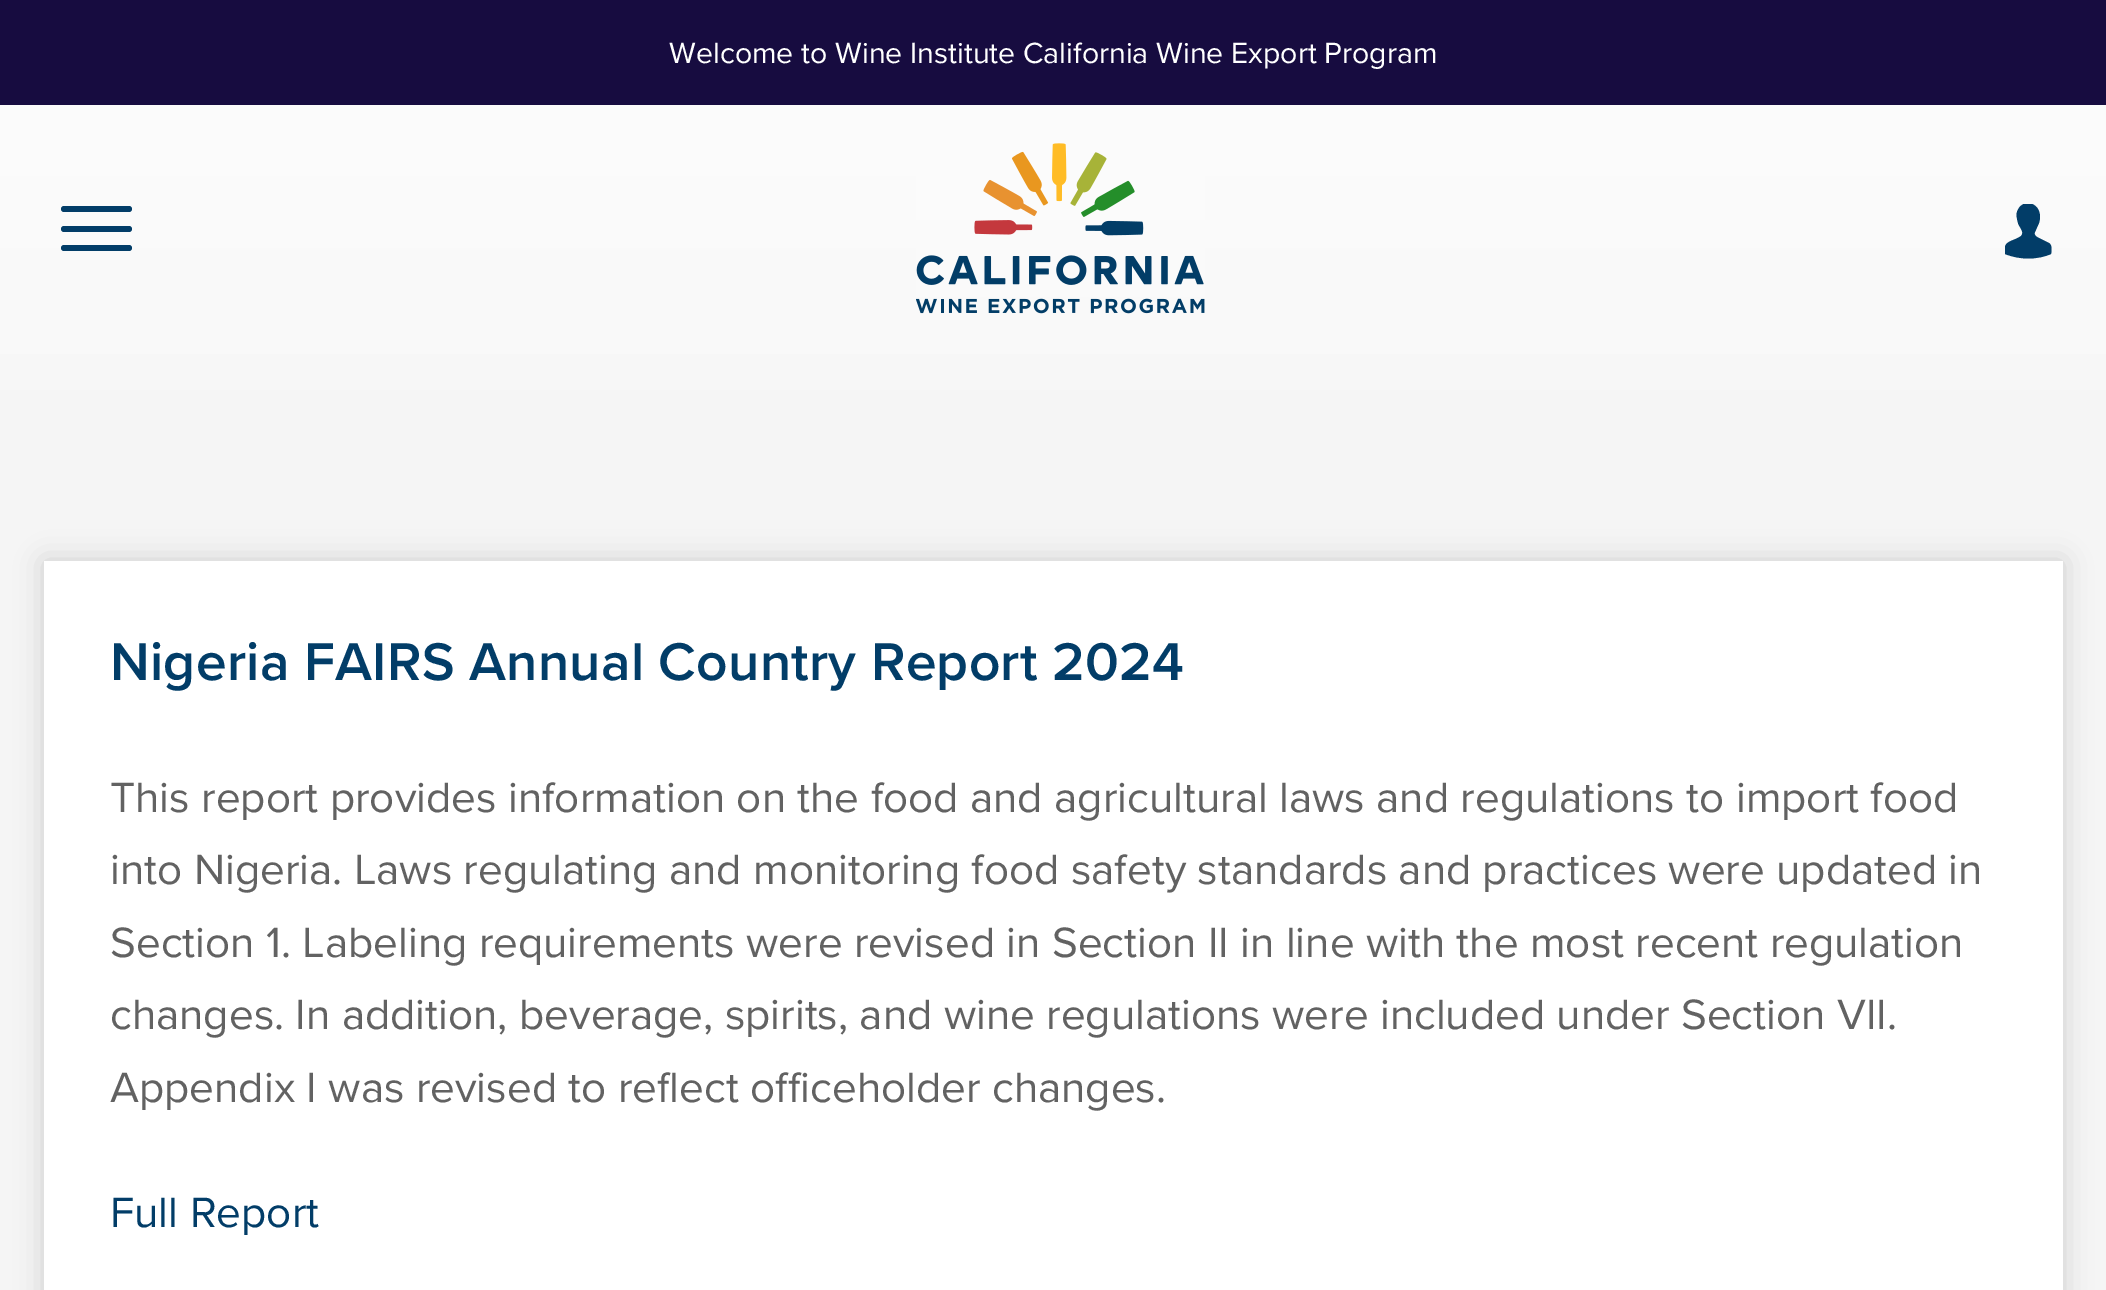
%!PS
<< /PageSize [2106 1290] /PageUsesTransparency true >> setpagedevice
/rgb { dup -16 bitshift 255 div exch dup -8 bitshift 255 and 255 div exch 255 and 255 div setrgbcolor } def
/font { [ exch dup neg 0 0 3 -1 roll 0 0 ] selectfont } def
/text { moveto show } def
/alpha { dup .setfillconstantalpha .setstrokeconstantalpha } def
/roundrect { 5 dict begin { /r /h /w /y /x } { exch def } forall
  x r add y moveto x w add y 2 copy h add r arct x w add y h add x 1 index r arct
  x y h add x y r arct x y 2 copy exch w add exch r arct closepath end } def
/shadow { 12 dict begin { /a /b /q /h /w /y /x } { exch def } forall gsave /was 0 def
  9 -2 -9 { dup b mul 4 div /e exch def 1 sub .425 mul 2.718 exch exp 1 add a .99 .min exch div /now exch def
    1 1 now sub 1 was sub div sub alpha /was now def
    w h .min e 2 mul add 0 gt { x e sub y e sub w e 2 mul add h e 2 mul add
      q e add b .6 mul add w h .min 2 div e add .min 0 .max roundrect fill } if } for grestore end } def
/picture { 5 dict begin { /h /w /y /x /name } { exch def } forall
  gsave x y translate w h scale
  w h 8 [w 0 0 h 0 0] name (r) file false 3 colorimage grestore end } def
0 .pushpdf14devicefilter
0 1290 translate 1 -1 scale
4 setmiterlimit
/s1 { /ProximaNova-Regular 30.25 font 16#FFFFFF rgb } def
/s2 { /ProximaNova-Regular 44 font 16#626262 rgb } def
/s3 { /ProximaNova-Regular 44 font 16#023D68 rgb } def
16#F5F5F5 rgb
0 0 2106 1290 rectfill
16#170C40 rgb
0 0 2106 105 rectfill
s1
(Welcome to Wine Institute California Wine Export Program) 669 63 text
gsave 0 105 moveto 2106 105 lineto 2106 390 lineto 0 390 lineto closepath clip newpath
<< /ShadingType 2 /ColorSpace /DeviceRGB /Coords [1053 104 1053 517] /Extend [true true] /Function << /FunctionType 3 /Domain [0 1] /Functions [<< /FunctionType 2 /Domain [0 1] /C0 [0.988 0.988 0.988] /C1 [0.976 0.976 0.976] /N 1 >> << /FunctionType 2 /Domain [0 1] /C0 [0.976 0.976 0.976] /C1 [0.957 0.957 0.957] /N 1 >>] /Bounds [0.56] /Encode [0 1 0 1] >> >> shfill grestore
16#023D68 rgb
61 226 71 6 3 roundrect fill
61 206 71 6 3 roundrect fill
61 245 71 6 3 roundrect fill
(pic1.raw) 916 143 289 171 picture
gsave
2005 204 47 55 rectclip
2049 243 moveto 2041 239 lineto 2039 238 2033 236 2035 232 curveto 2039 223 lineto 2045 203 2022 196 2017 212 curveto 2016 215 2017 219 2018 223 curveto 2019 227 2025 232 2021 236 curveto 2013 242 2002 240 2005 254 curveto 2020 260 2037 260 2051 254 curveto 2051 254 2053 245 2049 243 curveto closepath fill
grestore
16#000000 rgb
44 561 2019 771 0 14 0.16 shadow
16#FFFFFF rgb
44 561 2019 729 rectfill
/ProximaNova-SemiBold 55 font
16#023D68 rgb
110 680 moveto 0.3 0 (Nigeria FAIRS Annual Country Report 2024) ashow
s2
(This report provides information on the food and agricultural laws and regulations to import food) 110 812 text
(into Nigeria. Laws regulating and monitoring food safety standards and practices were updated in) 110 884 text
(Section 1. Labeling requirements were revised in Section II in line with the most recent regulation) 110 957 text
(changes. In addition, beverage, spirits, and wine regulations were included under Section VII.) 110 1029 text
(Appendix I was revised to reflect officeholder changes.) 110 1102 text
s3
(Full Report) 110 1227 text
.poppdf14devicefilter showpage
